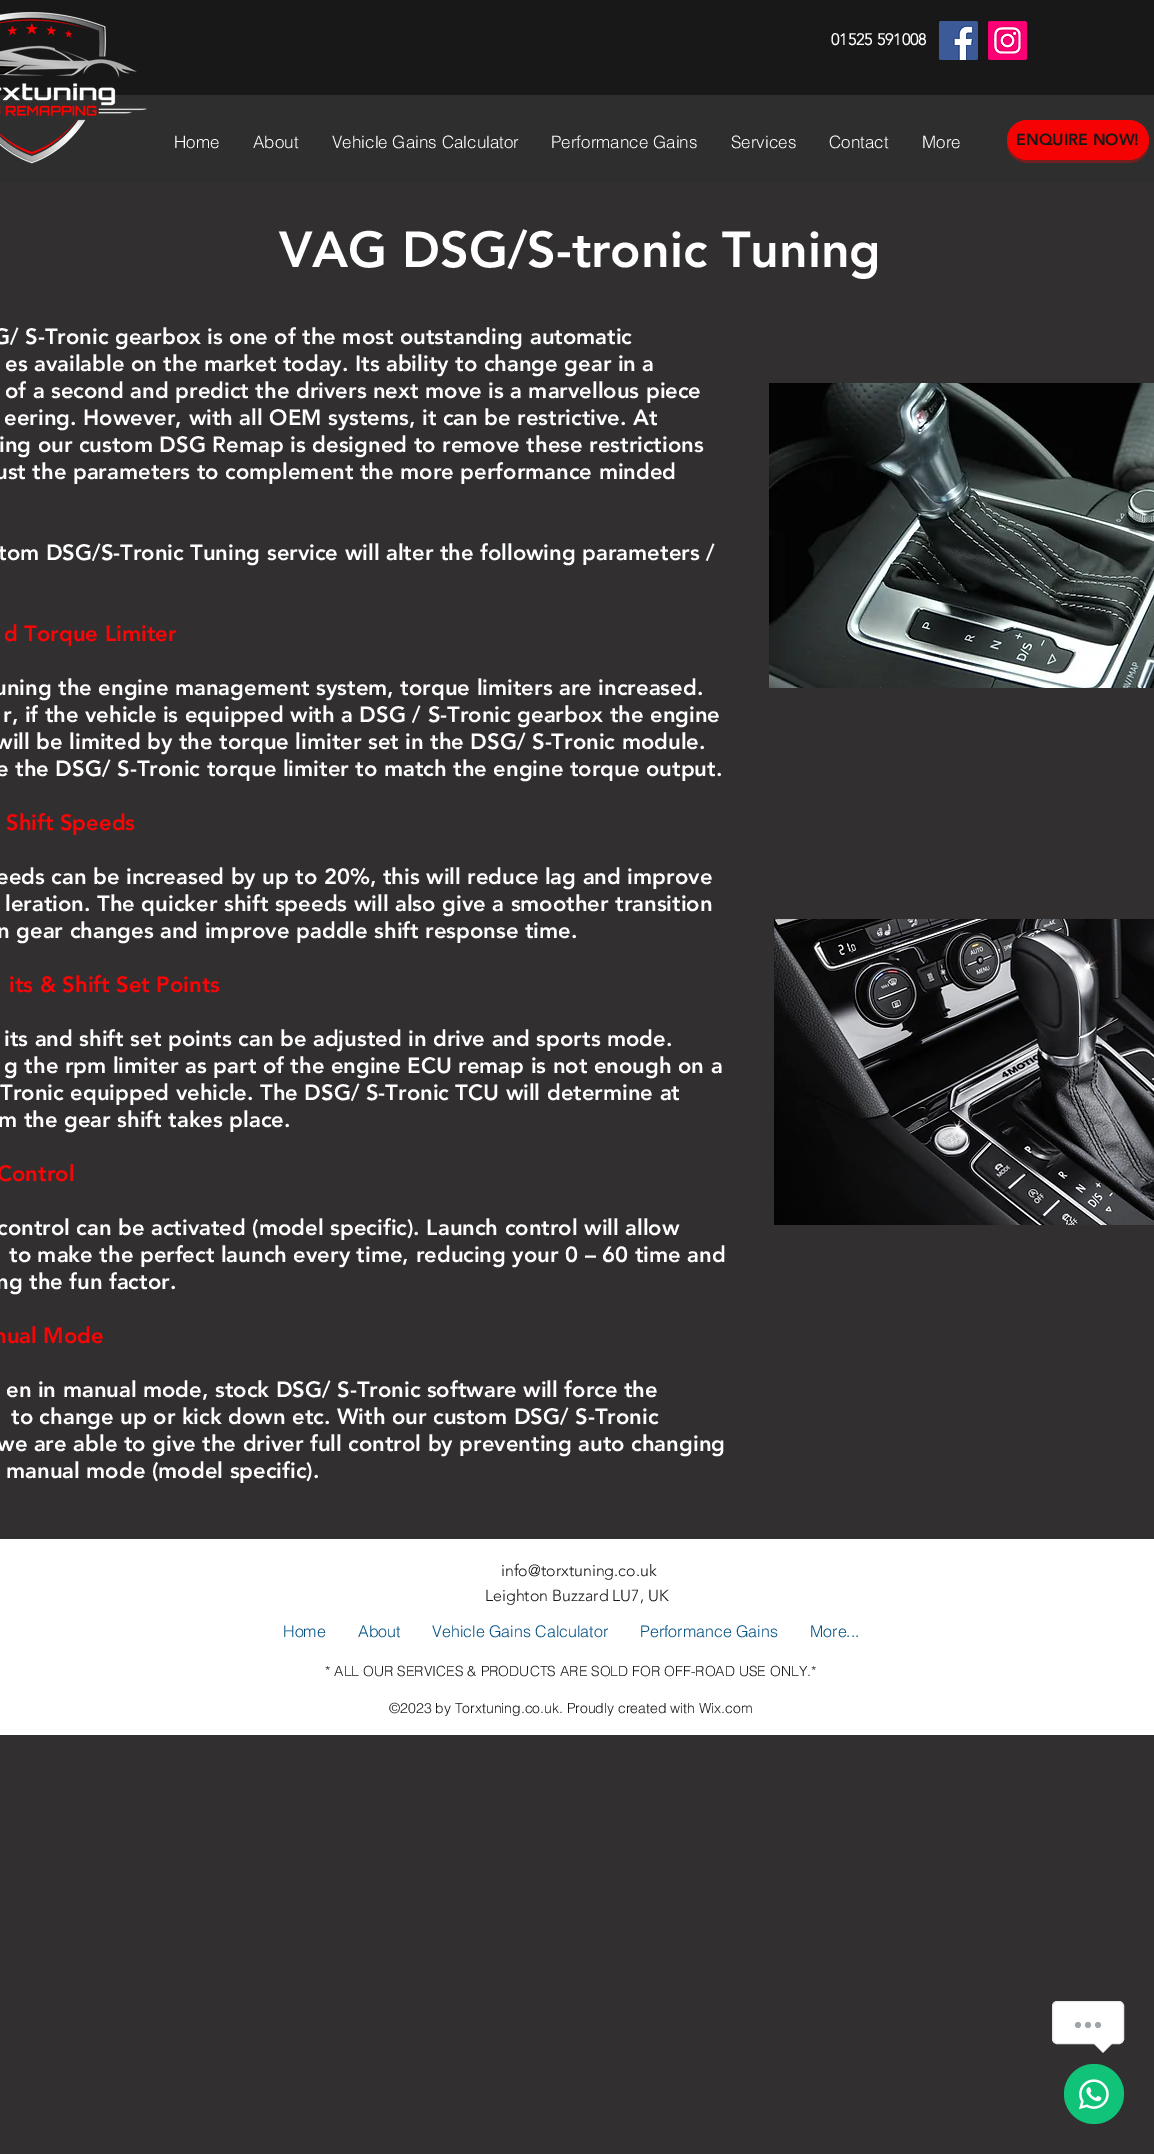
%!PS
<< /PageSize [1154 2154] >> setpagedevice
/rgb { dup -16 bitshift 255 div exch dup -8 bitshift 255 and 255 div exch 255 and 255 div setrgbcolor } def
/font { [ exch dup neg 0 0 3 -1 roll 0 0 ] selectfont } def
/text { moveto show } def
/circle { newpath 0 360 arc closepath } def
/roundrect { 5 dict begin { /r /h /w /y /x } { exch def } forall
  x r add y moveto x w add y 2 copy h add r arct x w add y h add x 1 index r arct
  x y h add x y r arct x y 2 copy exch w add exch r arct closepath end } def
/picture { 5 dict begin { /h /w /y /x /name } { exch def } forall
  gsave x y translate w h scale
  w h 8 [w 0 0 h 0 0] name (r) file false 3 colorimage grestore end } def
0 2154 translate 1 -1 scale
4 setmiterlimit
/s1 { /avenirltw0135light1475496-Bold 16 font 16#FFFFFF rgb } def
/s2 { /helvetica-Light 17 font 16#FFFFFF rgb } def
/s3 { /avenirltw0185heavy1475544-Black 16 font 16#181818 rgb } def
/s4 { /avenirltw0185heavy1475544-Black 50 font 16#FFFFFF rgb } def
/s5 { /avenirltw0185heavy1475544-Black 22 font 16#FFFFFF rgb } def
/s6 { /avenirltw0185heavy1475544-Black 22 font 16#FA0505 rgb } def
/s7 { /avenirltw0135light1475496-Light 16 font 16#181818 rgb } def
/s8 { /helvetica-Light 16 font 16#045184 rgb } def
/s9 { /helvetica-Light 14 font 16#181818 rgb } def
16#322F31 rgb
0 0 1154 2154 rectfill
16#181818 rgb
0 0 1154 95 rectfill
16#2F2E2E rgb
0 95 1154 87 rectfill
(pic1.raw) 0 12 147 152 picture
s1
(01525 591008) 831 45 text
(pic2.raw) 939 21 39 39 picture
(pic3.raw) 988 21 39 39 picture
s2
(Home) 174 148 text
(About) 253 148 text
(Vehicle Gains Calculator) 332 148 text
(Performance Gains) 551 148 text
(Services) 731 148 text
(Contact) 829 148 text
(More) 922 148 text
16#741F1F rgb
1007 141 moveto 1007 143 lineto 1007 154 1016 163 1027 163 curveto 1129 163 lineto 1140 163 1149 154 1149 143 curveto 1149 141 lineto 1148 152 1140 160 1129 160 curveto 1027 160 lineto 1016 160 1008 152 1007 141 curveto closepath fill
16#F50202 rgb
1007 120 142 40 20 roundrect fill
s3
(ENQUIRE NOW!) 1016 145 text
s4
(VAG DSG/S-tronic Tuning) 279 267 text
s5
(G/ S-Tronic gearbox is one of the most outstanding automatic) -7 344 text
(es available on the market today. Its ability to change gear in a) 5 371 text
(of a second and predict the drivers next move is a marvellous piece) 5 398 text
(eering. However, with all OEM systems, it can be restrictive. At) 4 425 text
(ing our custom DSG Remap is designed to remove these restrictions) -1 452 text
(ust the parameters to complement the more performance minded) -5 479 text
(tom DSG/S-Tronic Tuning service will alter the following parameters /) -2 560 text
s6
(d Torque Limiter) 4 641 text
s5
(uning the engine management system, torque limiters are increased.) -6 695 text
(r, if the vehicle is equipped with a DSG / S-Tronic gearbox the engine) 3 722 text
(will be limited by the torque limiter set in the DSG/ S-Tronic module.) -5 749 text
(e the DSG/ S-Tronic torque limiter to match the engine torque output.) -4 776 text
s6
(Shift Speeds) 6 830 text
s5
(eeds can be increased by up to 20%, this will reduce lag and improve) -4 884 text
(leration. The quicker shift speeds will also give a smoother transition) 5 911 text
(n gear changes and improve paddle shift response time.) -3 938 text
s6
(its & Shift Set Points) 9 992 text
s5
(its and shift set points can be adjusted in drive and sports mode.) 4 1046 text
(g the rpm limiter as part of the engine ECU remap is not enough on a) 4 1073 text
(Tronic equipped vehicle. The DSG/ S-Tronic TCU will determine at) 0 1100 text
(m the gear shift takes place.) -2 1127 text
s6
(Control) -3 1181 text
s5
(control can be activated \(model specific\). Launch control will allow) -3 1235 text
(to make the perfect launch every time, reducing your 0 – 60 time and) 9 1262 text
(ng the fun factor.) -4 1289 text
s6
(nual Mode) -6 1343 text
s5
(en in manual mode, stock DSG/ S-Tronic software will force the) 6 1397 text
(to change up or kick down etc. With our custom DSG/ S-Tronic) 11 1424 text
(we are able to give the driver full control by preventing auto changing) -3 1451 text
(manual mode \(model specific\).) 6 1478 text
(pic4.raw) 769 383 385 305 picture
(pic5.raw) 774 919 380 306 picture
0 1539 1154 196 rectfill
s7
(info@torxtuning.co.uk) 501 1576 text
(Leighton Buzzard LU7, UK) 485 1601 text
s8
(Home) 283 1637 text
(About) 358 1637 text
(Vehicle Gains Calculator) 432 1637 text
(Performance Gains) 640 1637 text
(More...) 810 1637 text
s9
(* ALL OUR SERVICES & PRODUCTS ARE SOLD FOR OFF-ROAD USE ONLY.*) 325 1676 text
(©2023 by Torxtuning.co.uk. Proudly created with Wix.com) 389 1713 text
16#FFFFFF rgb
1052.5 2001.5 71 42 4.5 roundrect gsave fill grestore
16#E9E9E9 rgb
stroke
16#9FA4A8 rgb
1078 2025 3 circle fill
1088 2025 3 circle fill
1098 2025 3 circle fill
16#E9E9E9 rgb
1093 2043 moveto 1113 2043 lineto 1103 2053 lineto closepath fill
16#FFFFFF rgb
1094 2043 moveto 1112 2043 lineto 1103 2052 lineto closepath fill
16#10C379 rgb
1094 2094 30 circle fill
(pic6.raw) 1079 2079 30 31 picture
showpage
